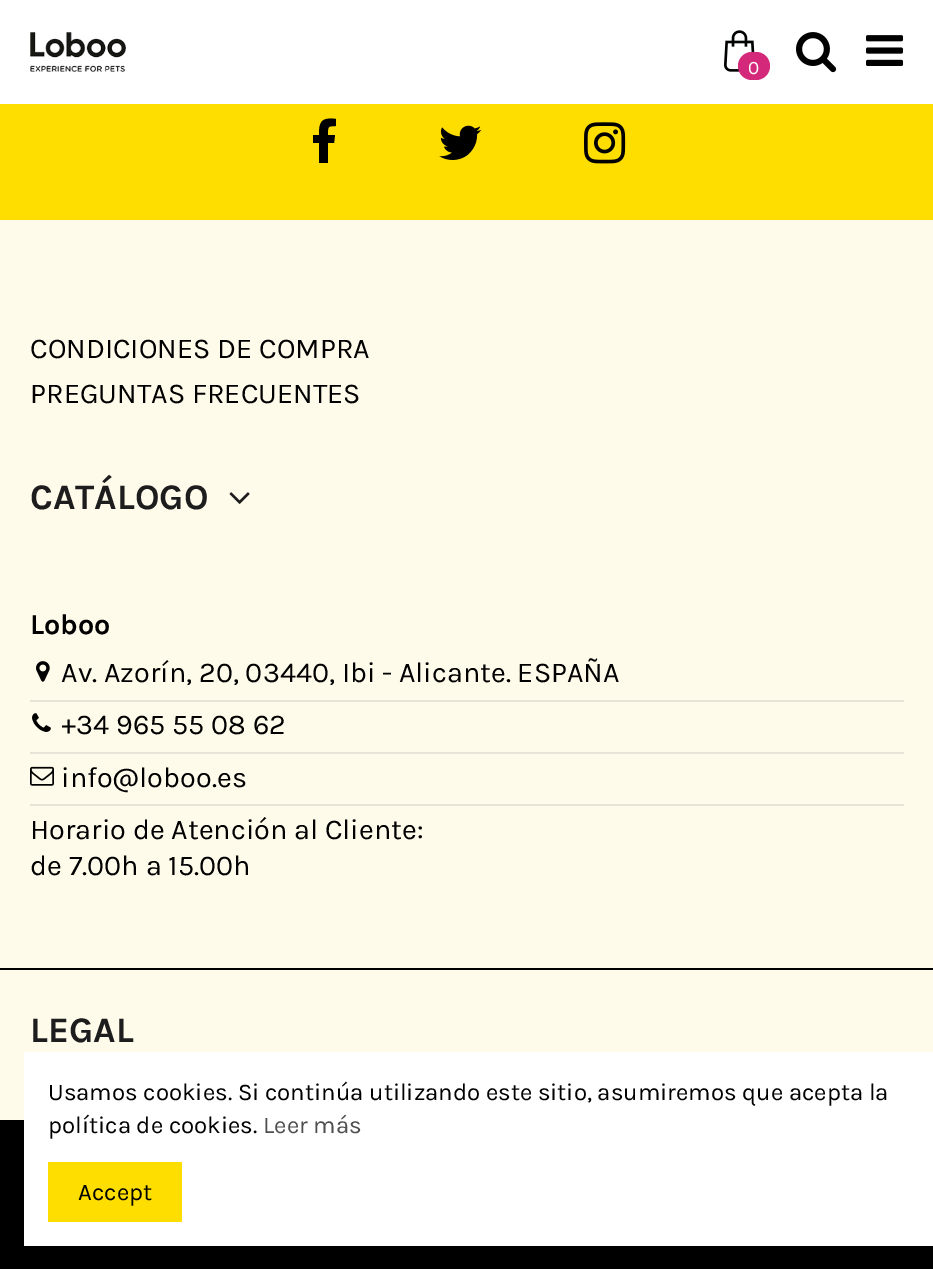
%!PS
<< /PageSize [933 1269] >> setpagedevice
/rgb { dup -16 bitshift 255 div exch dup -8 bitshift 255 and 255 div exch 255 and 255 div setrgbcolor } def
/font { [ exch dup neg 0 0 3 -1 roll 0 0 ] selectfont } def
/text { moveto show } def
/roundrect { 5 dict begin { /r /h /w /y /x } { exch def } forall
  x r add y moveto x w add y 2 copy h add r arct x w add y h add x 1 index r arct
  x y h add x y r arct x y 2 copy exch w add exch r arct closepath end } def
/picture { 5 dict begin { /h /w /y /x /name } { exch def } forall
  gsave x y translate w h scale
  w h 8 [w 0 0 h 0 0] name (r) file false 3 colorimage grestore end } def
0 1269 translate 1 -1 scale
4 setmiterlimit
/s1 { /Karla-Regular 19 font 16#FFFFFF rgb } def
/s2 { /Karla-Regular 28.75 font 16#000000 rgb } def
/s3 { /Karla-Bold 36 font 16#1D1D1D rgb } def
/s4 { /Karla-Bold 28.75 font 16#000000 rgb } def
/s5 { /Karla-Regular 24 font 16#000000 rgb } def
/s6 { /Karla-Regular 24 font 16#4E4E4E rgb } def
16#FFFBEA rgb
0 0 933 1269 rectfill
16#FFFFFF rgb
0 0 933 104 rectfill
(pic1.raw) 30 32 96 40 picture
(pic2.raw) 796 32 41 41 picture
(pic3.raw) 866 35 38 31 picture
(pic4.raw) 724 30 31 42 picture
16#D4297B rgb
738 52 32 28 14 roundrect fill
s1
(0) 748 74 text
16#FEDD00 rgb
0 104 933 116 rectfill
16#000000 rgb
336 119 moveto 336 126 lineto 327 126 328 127 328 135 curveto 335 135 lineto 334 143 lineto 328 143 lineto 328 163 lineto 319 163 lineto 319 143 lineto 313 143 lineto 313 135 lineto 319 135 lineto 319 122 321 117 336 119 curveto closepath fill
(pic5.raw) 439 125 43 35 picture
(pic6.raw) 584 122 42 42 picture
s2
(CONDICIONES DE COMPRA) 30 358 text
(PREGUNTAS FRECUENTES) 30 403 text
s3
(CATÁLOGO) 30 509 text
(pic7.raw) 229 492 21 12 picture
s4
(Loboo) 30 634 text
(pic8.raw) 36 661 14 21 picture
s2
(Av. Azorín, 20, 03440, Ibi - Alicante. ESPAÑA) 61 682 text
16#E8E5D8 rgb
30 700 874 2 rectfill
(pic9.raw) 32 713 19 19 picture
gsave
62 708 224 36 rectclip
s2
(+34 965 55 08 62) 61 734 text
grestore
30 752 874 2 rectfill
(pic10.raw) 30 766 24 20 picture
s2
(info@loboo.es) 61 787 text
16#E8E5D8 rgb
30 804 874 2 rectfill
s2
(Horario de Atención al Cliente:) 30 839 text
(de 7.00h a 15.00h) 30 875 text
0 968 933 2 rectfill
s3
(LEGAL) 30 1042 text
16#000000 rgb
0 1120 933 149 rectfill
16#FFFFFF rgb
24 1052 909 194 rectfill
s5
(Usamos cookies. Si continúa utilizando este sitio, asumiremos que acepta la) 48 1100 text
(política de cookies.) 48 1133 text
s6
(Leer más) 263 1133 text
16#FEDD00 rgb
48 1162 134 60 rectfill
s5
(Accept) 78 1200 text
showpage
